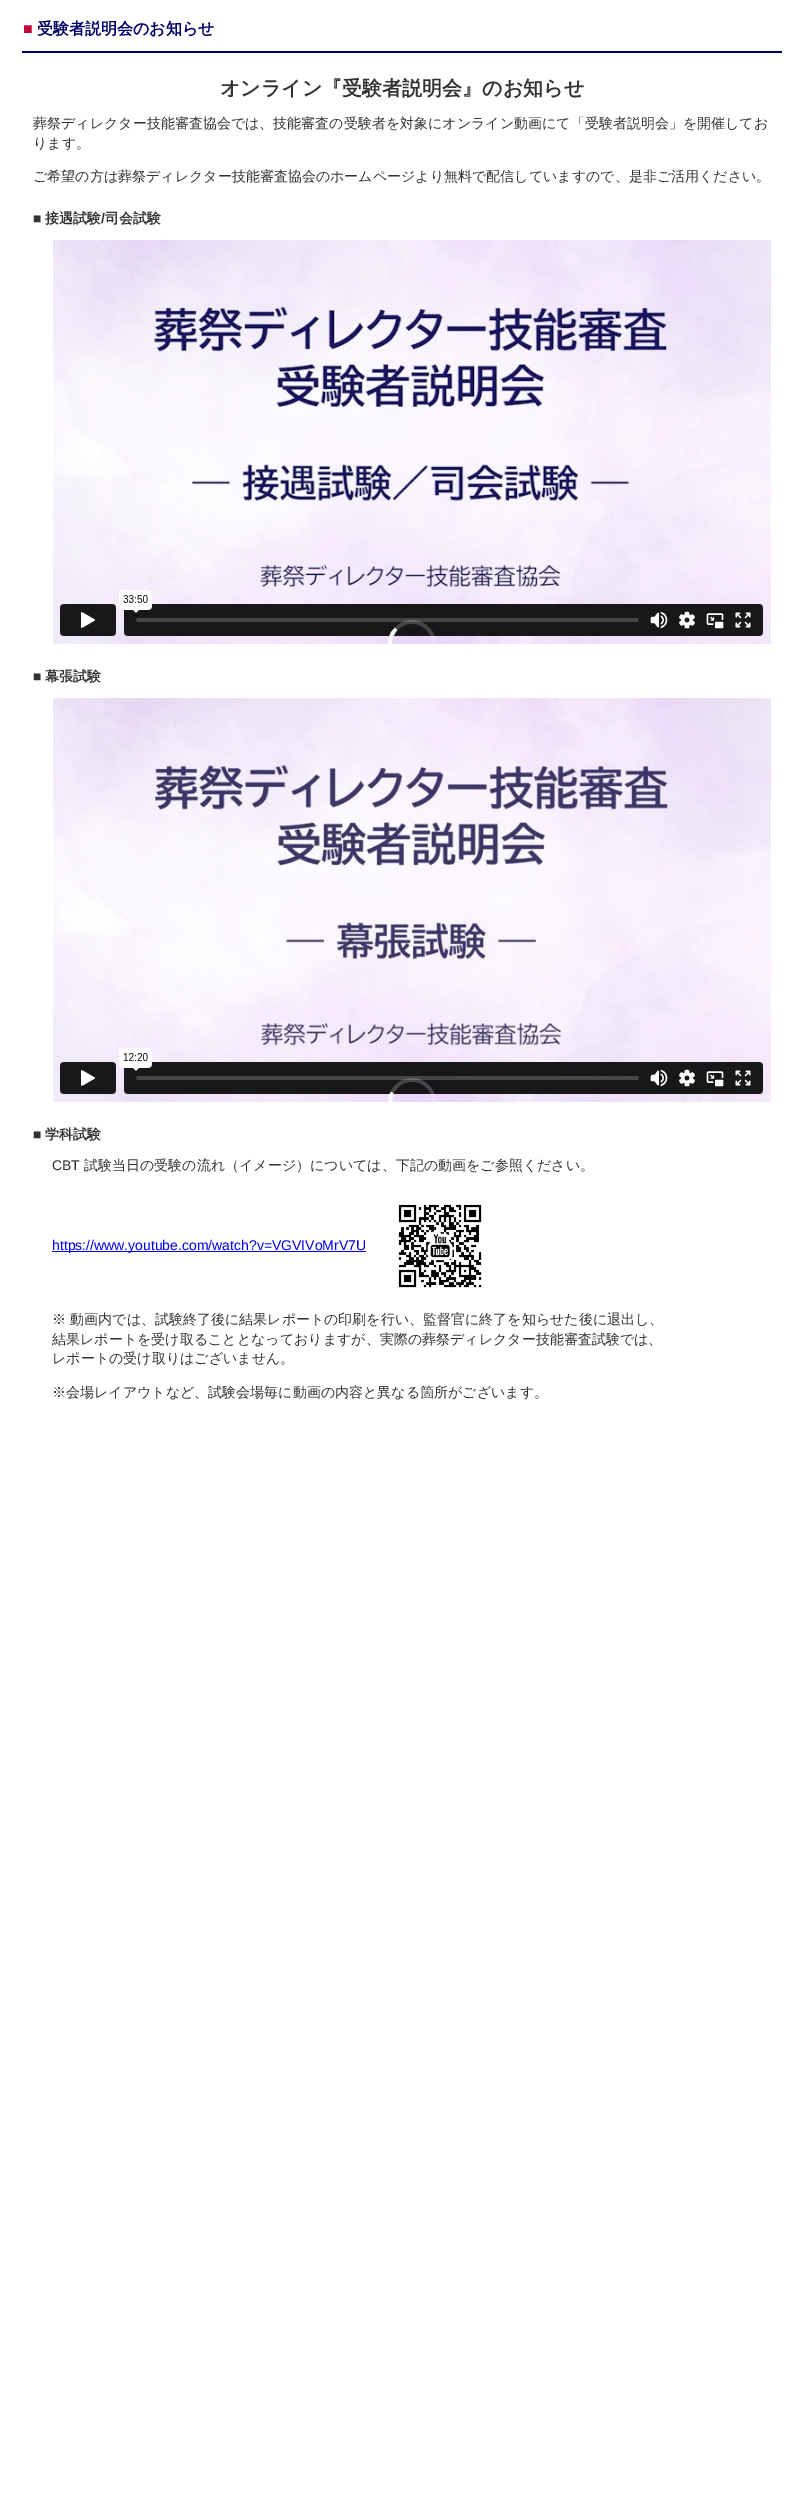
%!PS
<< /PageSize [804 2497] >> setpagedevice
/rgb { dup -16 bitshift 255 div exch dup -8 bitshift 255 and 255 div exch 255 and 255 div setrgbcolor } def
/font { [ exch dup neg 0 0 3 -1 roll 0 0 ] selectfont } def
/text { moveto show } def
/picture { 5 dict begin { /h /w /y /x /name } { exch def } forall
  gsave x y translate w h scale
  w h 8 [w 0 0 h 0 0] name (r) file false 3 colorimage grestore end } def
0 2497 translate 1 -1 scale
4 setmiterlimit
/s1 { /LiberationSerif-Bold 16 font 16#C8063A rgb } def
/s2 { /WenQuanYiZenHei-Bold 16 font 16#000066 rgb } def
/s3 { /WenQuanYiZenHei-Bold 20 font 16#333333 rgb } def
/s4 { /WenQuanYiZenHei-Medium 14 font 16#333333 rgb } def
/s5 { /LiberationSans-Bold 14 font 16#333333 rgb } def
/s6 { /WenQuanYiZenHei-Bold 14 font 16#333333 rgb } def
/s7 { /LiberationSans-Regular 14 font 16#333333 rgb } def
/s8 { /LiberationSans-Regular 14 font 16#0000EE rgb } def
16#FFFFFF rgb
0 0 804 2497 rectfill
s1
(■) 23 34 text
s2
(受験者説明会のお知らせ) 37 34 text
22 51 760 2 rectfill
s3
(オンライン『受験者説明会』のお知らせ) 220 95 text
s4
(葬祭ディレクター技能審査協会では、技能審査の受験者を対象にオンライン動画にて「受験者説明会」を開催してお) 33 128 text
(ります。) 33 148 text
(ご希望の方は葬祭ディレクター技能審査協会のホームページより無料で配信していますので、是非ご活用ください。) 33 181 text
s5
(■) 33 223 text
s6
(接遇試験) 45 223 text
s5
(/) 101 223 text
s6
(司会試験) 105 223 text
(pic1.raw) 53 240 718 404 picture
s5
(■) 33 681 text
s6
(幕張試験) 45 681 text
(pic2.raw) 53 698 718 404 picture
s5
(■) 33 1139 text
s6
(学科試験) 45 1139 text
s7
(CBT) 52 1170 text
s4
(試験当日の受験の流れ（イメージ）については、下記の動画をご参照ください。) 84 1170 text
16#0000EE rgb
52 1251 314 1 rectfill
s8
(https://www.youtube.com/watch?v=VGVIVoMrV7U) 52 1250 text
(pic3.raw) 398 1204 84 84 picture
s4
(※ 動画内では、試験終了後に結果レポートの印刷を行い、監督官に終了を知らせた後に退出し、) 52 1324 text
(結果レポートを受け取ることとなっておりますが、実際の葬祭ディレクター技能審査試験では、) 52 1344 text
(レポートの受け取りはございません。) 52 1363 text
(※会場レイアウトなど、試験会場毎に動画の内容と異なる箇所がございます。) 52 1397 text
showpage
